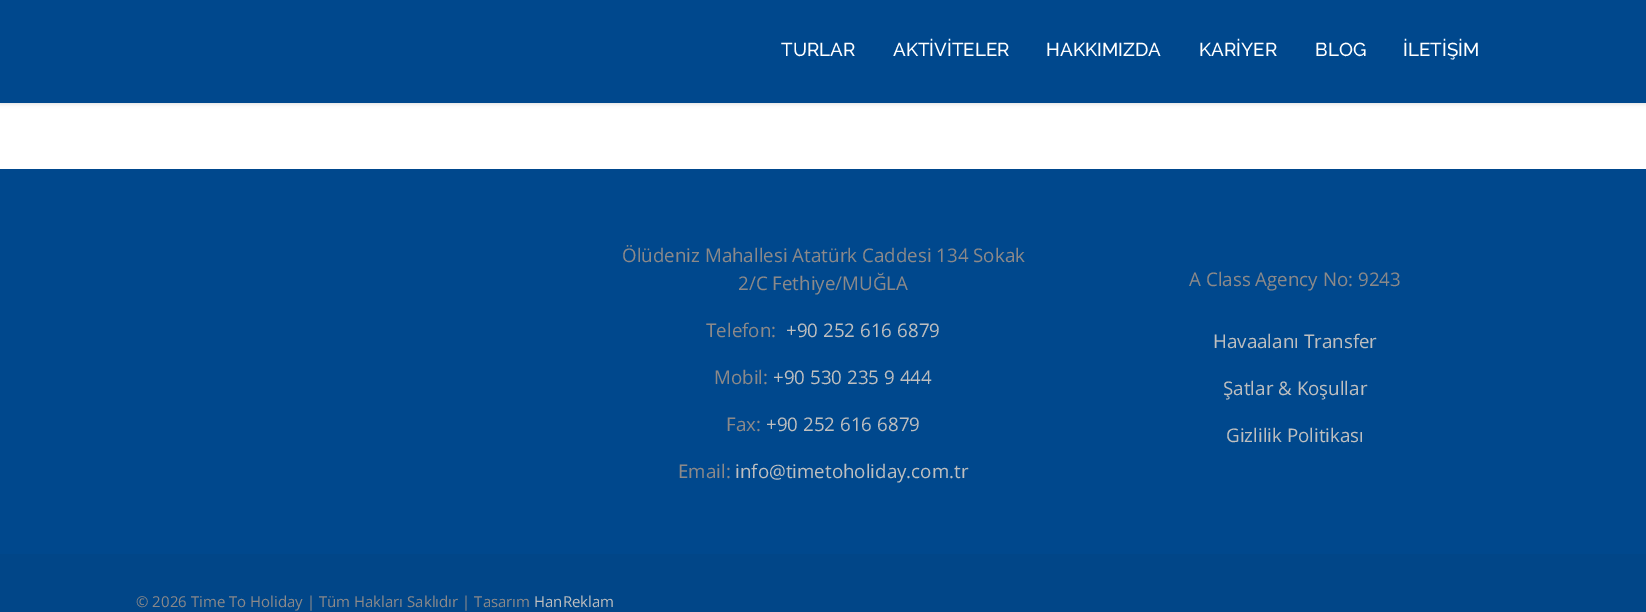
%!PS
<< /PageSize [1646 612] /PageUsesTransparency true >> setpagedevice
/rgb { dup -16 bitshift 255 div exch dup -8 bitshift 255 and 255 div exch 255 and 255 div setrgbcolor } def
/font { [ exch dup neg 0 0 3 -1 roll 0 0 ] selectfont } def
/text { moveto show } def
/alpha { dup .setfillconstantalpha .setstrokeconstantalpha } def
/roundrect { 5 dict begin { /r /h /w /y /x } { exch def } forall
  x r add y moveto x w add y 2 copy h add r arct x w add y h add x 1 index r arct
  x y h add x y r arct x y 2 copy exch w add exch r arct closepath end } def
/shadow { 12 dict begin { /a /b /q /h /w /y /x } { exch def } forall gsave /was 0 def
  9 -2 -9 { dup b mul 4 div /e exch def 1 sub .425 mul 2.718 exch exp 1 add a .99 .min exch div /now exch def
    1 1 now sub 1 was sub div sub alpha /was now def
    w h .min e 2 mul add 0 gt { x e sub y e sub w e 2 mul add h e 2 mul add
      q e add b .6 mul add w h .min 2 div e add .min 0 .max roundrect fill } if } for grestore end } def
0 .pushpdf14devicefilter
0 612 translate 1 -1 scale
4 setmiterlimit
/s1 { /Raleway-Medium 18.75 font 16#FFFFFF rgb } def
/s2 { /OpenSans-Regular 18.75 font 16#8C8989 rgb } def
/s3 { /OpenSans-Regular 18.75 font 16#BFBFBF rgb } def
/s4 { /OpenSans-Regular 15 font 16#8C8989 rgb } def
/s5 { /OpenSans-Regular 15 font 16#BFBFBF rgb } def
16#FFFFFF rgb
0 0 1646 612 rectfill
16#000000 rgb
0 1 1646 103 0 2 0.12 shadow
16#00488D rgb
0 0 1646 103 rectfill
s1
(TURLAR) 781 56 text
(AKTİVİTELER) 893 56 text
(HAKKIMIZDA) 1046 56 text
(KARİYER) 1199 56 text
(BLOG) 1315 56 text
(İLETİŞİM) 1403 56 text
16#00488D rgb
0 169 1646 385 rectfill
s2
(Ölüdeniz Mahallesi Atatürk Caddesi 134 Sokak) 622 262 text
(2/C Fethiye/MUĞLA) 738 290 text
(Telefon:) 706 337 text
s3
(+90 252 616 6879) 786 337 text
s2
(Mobil:) 714 384 text
s3
(+90 530 235 9 444) 773 384 text
s2
(Fax:) 726 431 text
s3
(+90 252 616 6879) 766 431 text
s2
(Email:) 678 478 text
s3
(info@timetoholiday.com.tr) 735 478 text
s2
(A Class Agency No: 9243) 1189 286 text
s3
(Havaalanı Transfer) 1213 348 text
(Şatlar & Koşullar) 1223 395 text
(Gizlilik Politikası) 1226 442 text
16#014688 rgb
0 554 1646 58 rectfill
s4
(© 2026 Time To Holiday | Tüm Hakları Saklıdır | Tasarım) 136 607 text
s5
(HanReklam) 534 607 text
.poppdf14devicefilter showpage
